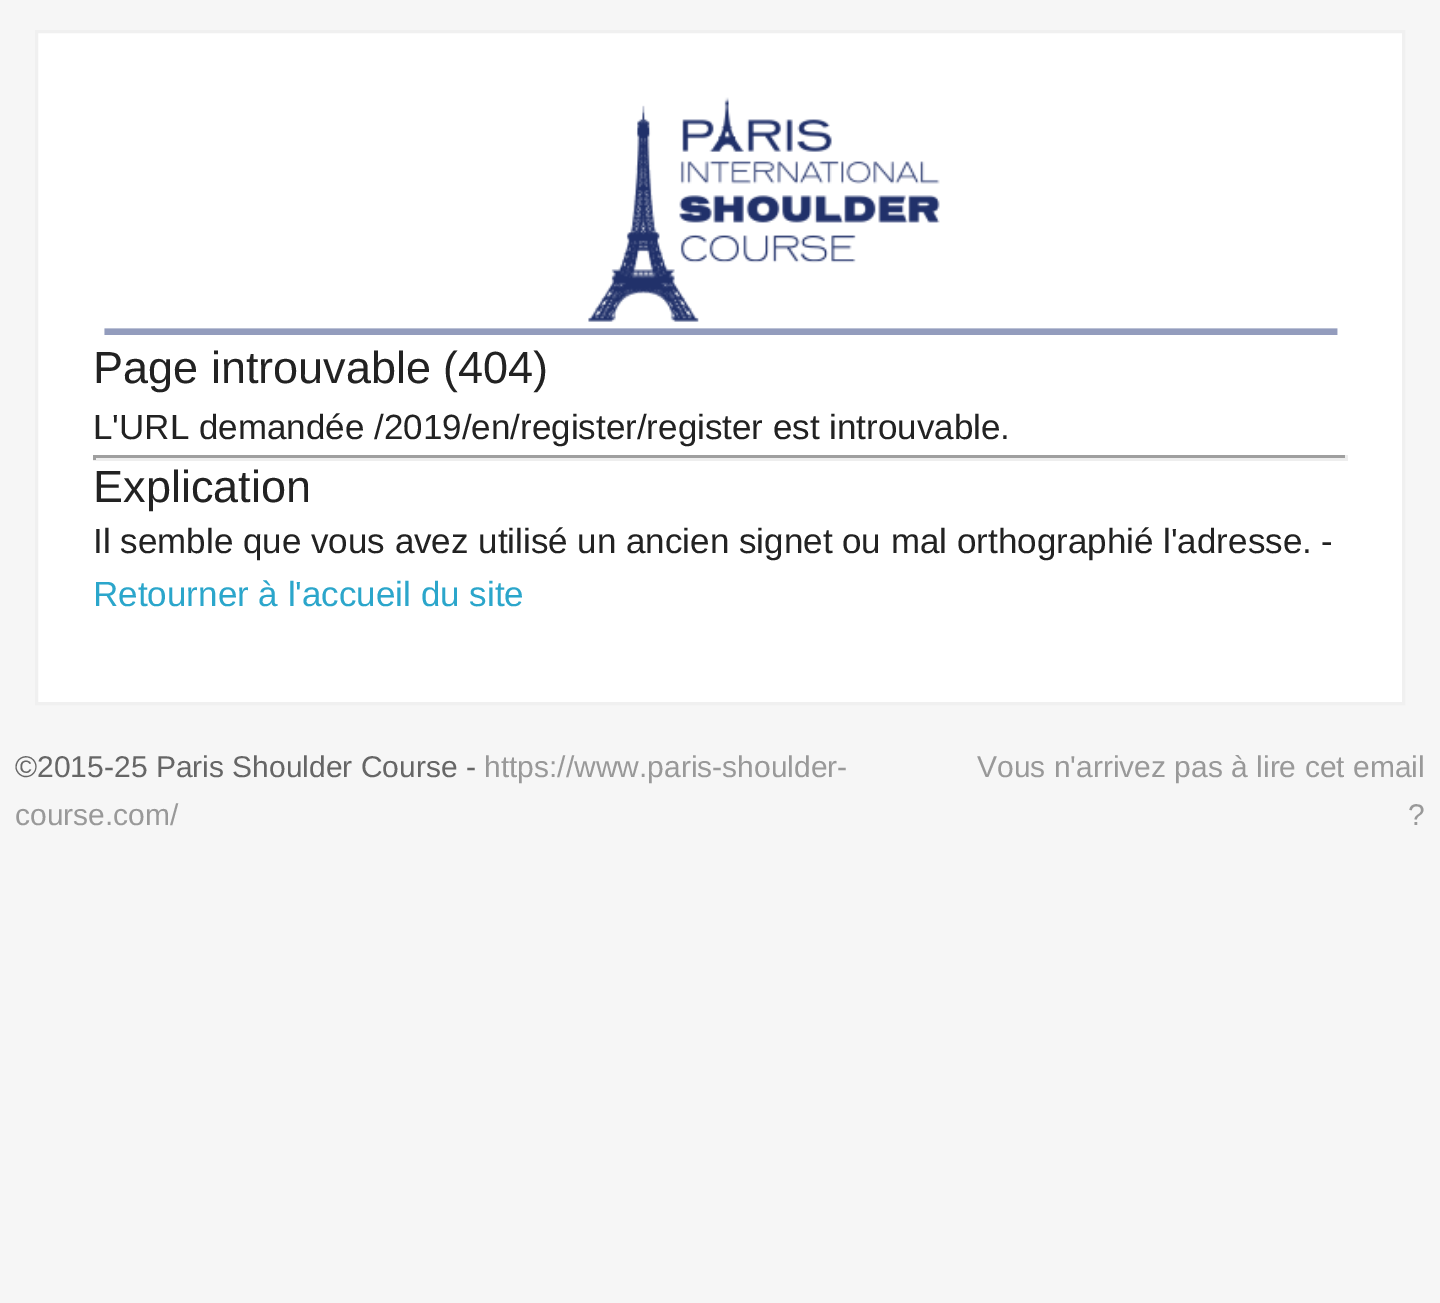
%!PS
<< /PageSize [1440 1303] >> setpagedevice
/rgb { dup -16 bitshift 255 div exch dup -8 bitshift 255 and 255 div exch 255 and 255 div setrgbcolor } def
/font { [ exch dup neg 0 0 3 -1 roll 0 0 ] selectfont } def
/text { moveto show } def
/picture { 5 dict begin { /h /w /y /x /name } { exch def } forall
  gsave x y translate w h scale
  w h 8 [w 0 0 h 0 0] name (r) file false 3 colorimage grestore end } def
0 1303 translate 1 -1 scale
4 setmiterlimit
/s1 { /LiberationSans-Regular 45 font 16#222222 rgb } def
/s2 { /LiberationSans-Regular 35 font 16#222222 rgb } def
/s3 { /LiberationSans-Regular 35 font 16#2BA6CB rgb } def
/s4 { /LiberationSans-Regular 30 font 16#666666 rgb } def
/s5 { /LiberationSans-Regular 30 font 16#999999 rgb } def
16#F6F6F6 rgb
0 0 1440 1303 rectfill
16#FFFFFF rgb
36.5 31.5 moveto 1403.5 31.5 lineto 1403.5 703.5 lineto 36.5 703.5 lineto closepath gsave fill grestore
16#F0F0F0 rgb
3 setlinewidth
stroke
(pic1.raw) 104 97 1234 238 picture
s1
(Page introuvable \(404\)) 93 383 text
s2
(L'URL demandée /2019/en/register/register est introuvable.) 93 439 text
16#9F9F9F rgb
93 455 1255 3 rectfill
16#EEEEEE rgb
1345 455 3 5 rectfill
93 458 1255 3 rectfill
16#9F9F9F rgb
93 455 3 5 rectfill
s1
(Explication) 93 502 text
s2
(Il semble que vous avez utilisé un ancien signet ou mal orthographié l'adresse. -) 93 553 text
s3
(Retourner à l'accueil du site) 93 606 text
s4
(©2015-25 Paris Shoulder Course -) 15 777 text
s5
(https://www.paris-shoulder-) 484 777 text
(course.com/) 15 825 text
(Vous n'arrivez pas à lire cet email) 977 777 text
(?) 1408 825 text
showpage
